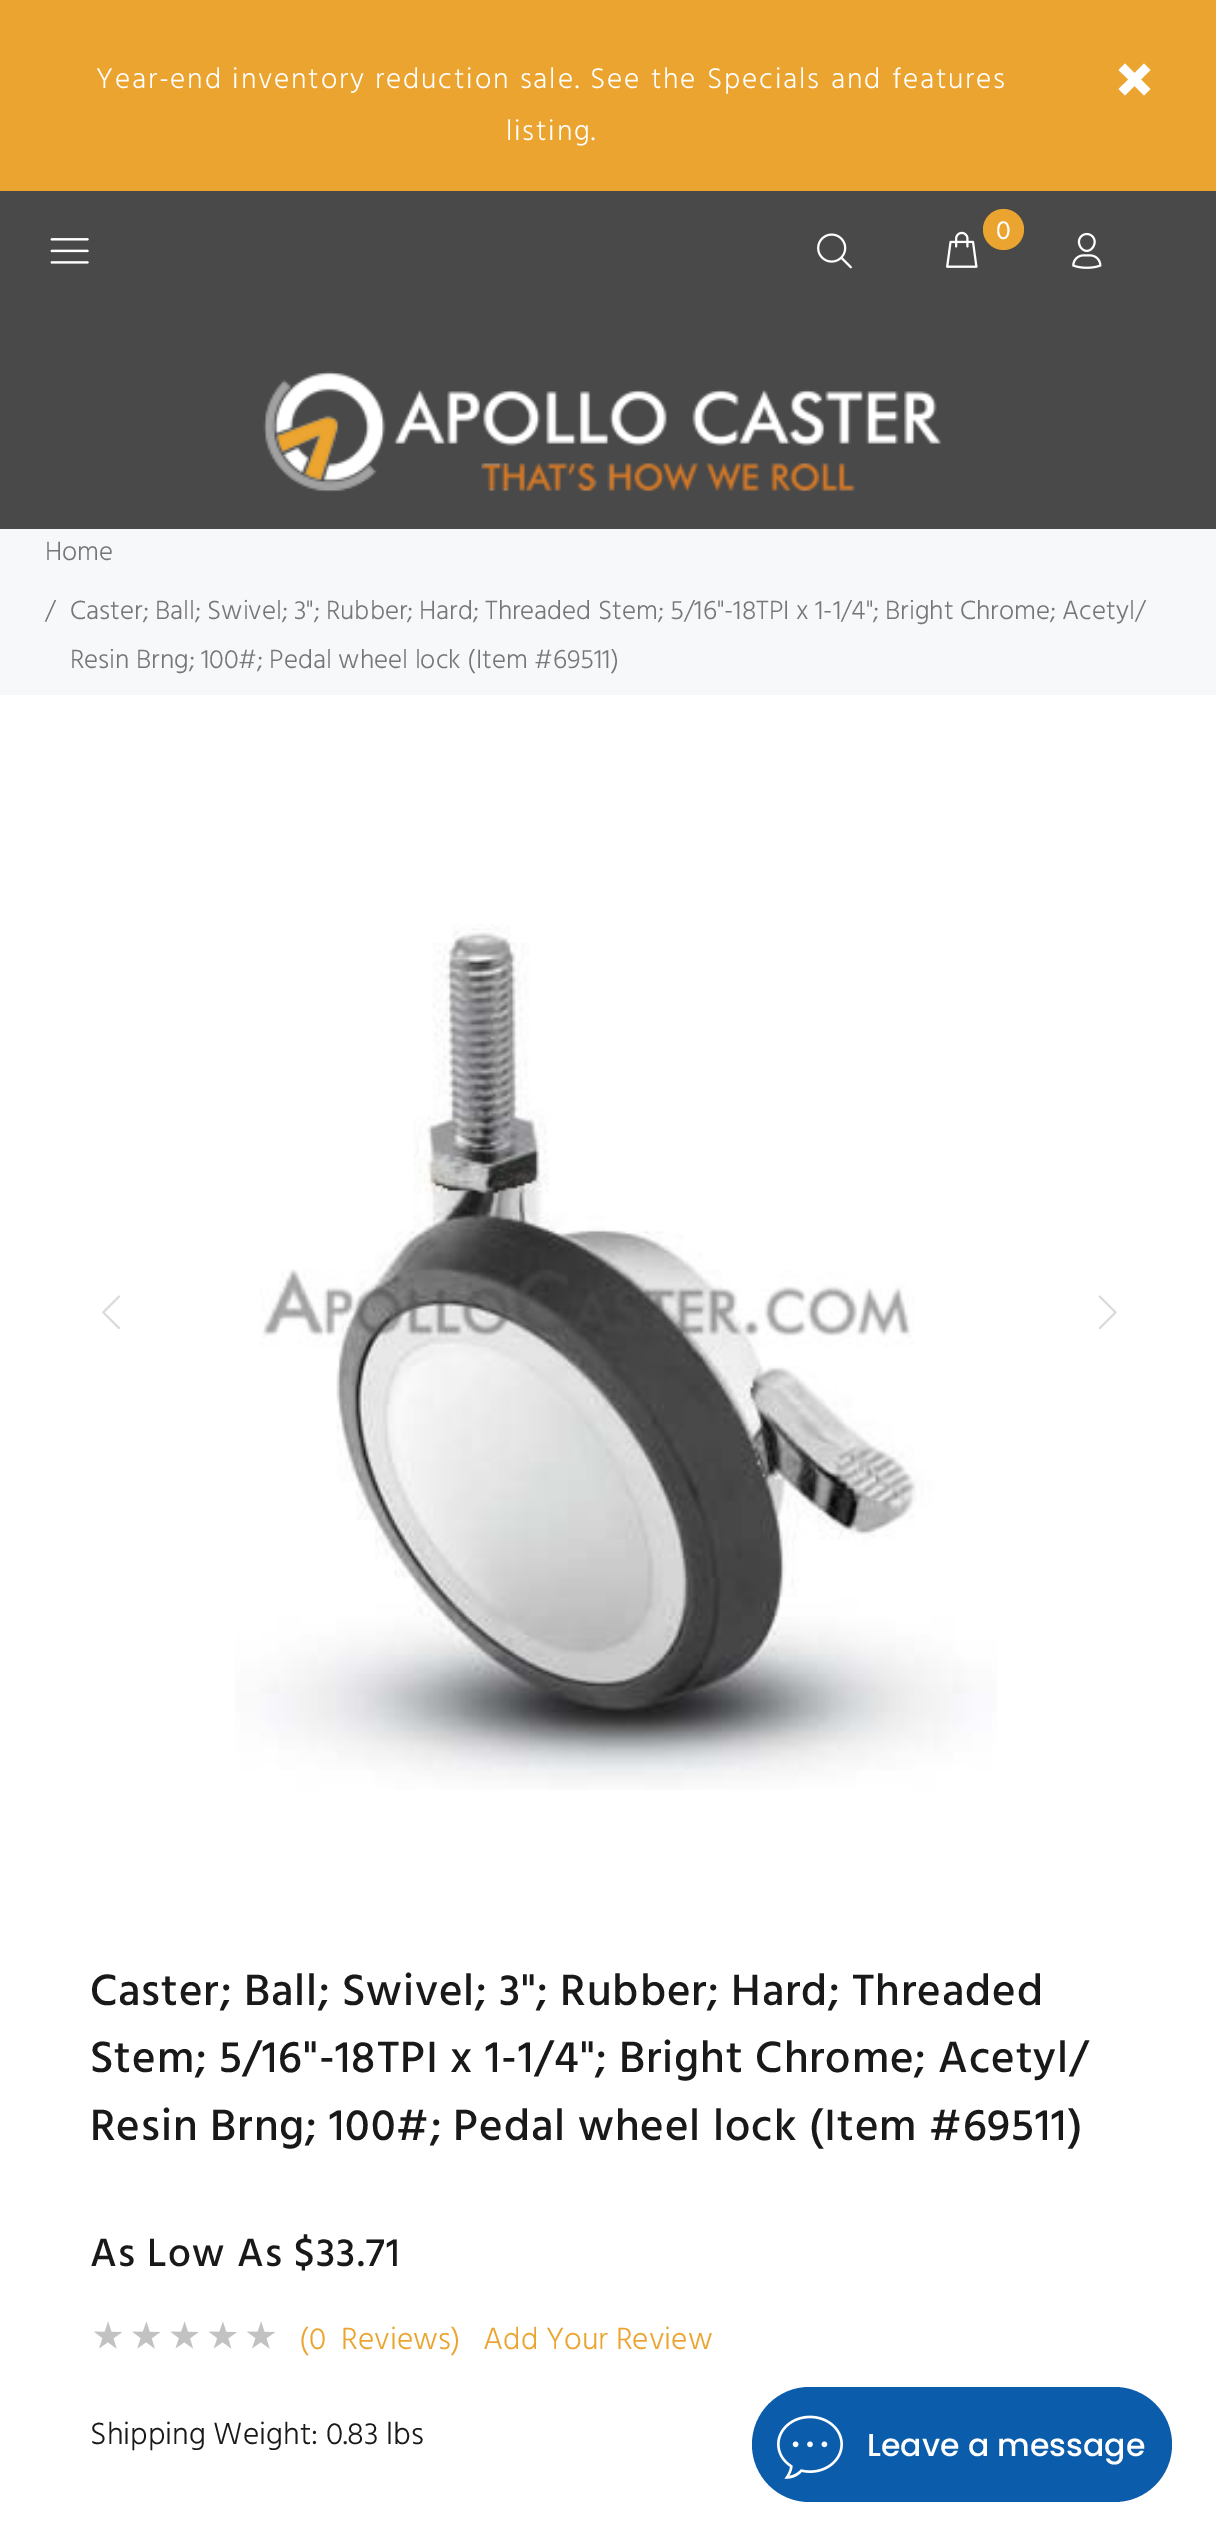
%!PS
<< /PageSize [1216 2545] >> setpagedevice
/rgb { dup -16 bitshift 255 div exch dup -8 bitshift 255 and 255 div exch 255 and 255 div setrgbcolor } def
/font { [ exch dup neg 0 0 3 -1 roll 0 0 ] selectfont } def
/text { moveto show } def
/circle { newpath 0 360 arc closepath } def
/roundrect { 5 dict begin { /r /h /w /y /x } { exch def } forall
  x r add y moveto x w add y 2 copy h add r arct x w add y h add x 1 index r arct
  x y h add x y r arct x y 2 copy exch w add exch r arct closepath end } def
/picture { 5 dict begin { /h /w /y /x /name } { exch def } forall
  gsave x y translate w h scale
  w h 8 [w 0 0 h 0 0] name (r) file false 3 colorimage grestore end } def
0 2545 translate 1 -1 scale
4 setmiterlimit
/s1 { /Hind-Regular 27 font 16#FFFFFF rgb } def
/s2 { /Hind-Light 27 font 16#777777 rgb } def
/s3 { /Hind-Light 31.5 font 16#EBA42F rgb } def
/s4 { /Hind-Light 31.5 font 16#191919 rgb } def
/s5 { /Poppins-Medium 31.5 font 16#FFFFFF rgb } def
16#FFFFFF rgb
0 0 1216 2545 rectfill
16#EBA42F rgb
0 0 1216 191 rectfill
/Hind-Light 29.25 font
16#FFFFFF rgb
96 88 moveto 1 0 32 1.75 0 (Year-end inventory reduction sale.) awidthshow
590 88 moveto 1 0 32 1.75 0 (See the Specials and features) awidthshow
506 140 moveto 1.75 0 (listing.) ashow
1150.5 70 moveto 1141 79.5 lineto 1150.5 89 lineto 1144 95.5 lineto 1134.5 86 lineto 1125 95.5 lineto 1118.5 89 lineto 1128.5 79.5 lineto 1118.5 70 lineto 1125 63.5 lineto 1134.5 73 lineto 1144 63.5 lineto closepath fill
16#494949 rgb
0 191 1216 338 rectfill
(pic1.raw) 50 238 39 26 picture
(pic2.raw) 817 233 35 36 picture
(pic3.raw) 946 231 32 37 picture
16#EBA42F rgb
1003.5 229.5 20.5 circle fill
s1
(0) 996 239 text
(pic4.raw) 1072 232 30 37 picture
(pic5.raw) 263 371 679 121 picture
16#F7F8FA rgb
0 529 1216 166 rectfill
s2
(Home) 45 560 text
(/) 45 619 text
(Caster; Ball; Swivel; 3"; Rubber; Hard; Threaded Stem; 5/16"-18TPI x 1-1/4"; Bright Chrome; Acetyl/) 70 619 text
(Resin Brng; 100#; Pedal wheel lock \(Item #69511\)) 70 668 text
(pic6.raw) 102 1295 18 34 picture
(pic7.raw) 235 924 762 866 picture
(pic8.raw) 1098 1295 19 35 picture
/Hind-Medium 45 font
16#191919 rgb
90 2005 moveto 0.9 0 (Caster; Ball; Swivel; 3"; Rubber; Hard; Threaded) ashow
90 2072 moveto 0.9 0 (Stem; 5/16"-18TPI x 1-1/4"; Bright Chrome; Acetyl/) ashow
90 2140 moveto 0.9 0 (Resin Brng; 100#; Pedal wheel lock \(Item #69511\)) ashow
/Hind-Medium 40.5 font
90 2266 moveto 1.25 0 (As Low As $33.71) ashow
(pic9.raw) 94 2321 182 28 picture
s3
(\(0  Reviews\)) 299 2349 text
(Add Your Review) 483 2349 text
s4
(Shipping Weight: 0.83 lbs) 90 2444 text
16#0B5CAB rgb
752 2387 420 115 57.5 roundrect fill
(pic10.raw) 777 2415 66 64 picture
s5
(Leave a message) 867 2456 text
showpage
